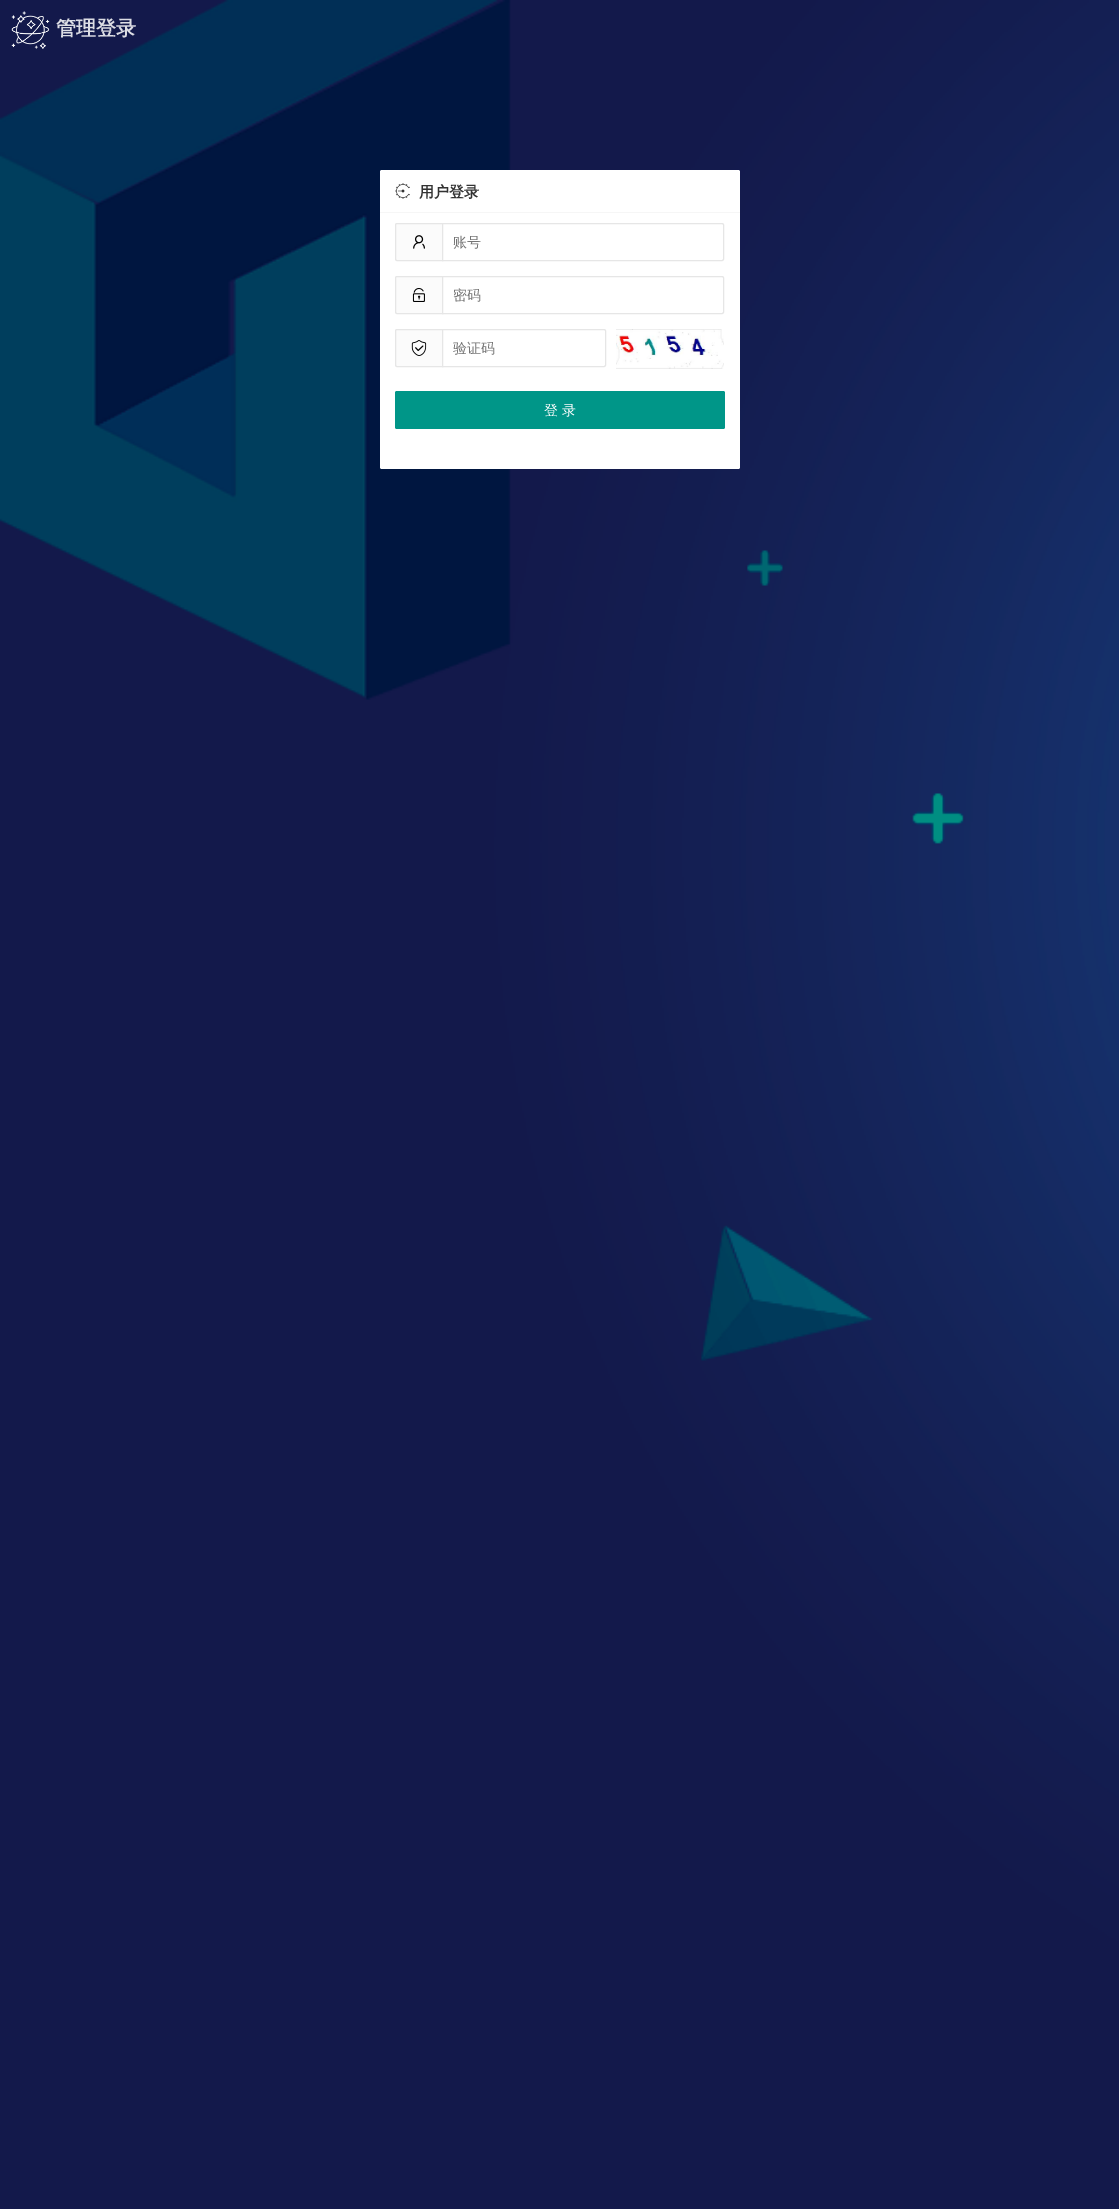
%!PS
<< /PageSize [1119 2209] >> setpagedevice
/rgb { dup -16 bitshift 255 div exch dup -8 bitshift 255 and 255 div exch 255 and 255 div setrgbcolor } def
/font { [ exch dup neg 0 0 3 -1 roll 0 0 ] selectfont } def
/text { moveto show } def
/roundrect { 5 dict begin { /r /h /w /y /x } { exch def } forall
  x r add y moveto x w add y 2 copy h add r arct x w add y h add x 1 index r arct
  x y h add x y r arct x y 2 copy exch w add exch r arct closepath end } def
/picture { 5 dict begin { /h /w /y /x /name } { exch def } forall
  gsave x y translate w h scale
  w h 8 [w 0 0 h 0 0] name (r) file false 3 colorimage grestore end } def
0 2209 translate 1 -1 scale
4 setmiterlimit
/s1 { /WenQuanYiZenHei-Bold 20 font 16#DCDDE4 rgb } def
/s2 { /WenQuanYiZenHei-Bold 15 font 16#333333 rgb } def
/s3 { /WenQuanYiZenHei-Medium 14 font 16#757575 rgb } def
/s4 { /WenQuanYiZenHei-Medium 14 font 16#FFFFFF rgb } def
16#FFFFFF rgb
0 0 1119 2209 rectfill
(pic1.raw) 0 0 1119 2209 picture
(pic2.raw) 11 11 39 38 picture
s1
(管理登录) 56 35 text
16#FFFFFF rgb
380 170 360 299 2 roundrect fill
16#F6F6F6 rgb
380 212 360 1 rectfill
(pic3.raw) 395 183 15 16 picture
s2
(用户登录) 419 197 text
16#FBFBFB rgb
397 223.5 moveto 442.5 223.5 lineto 442.5 260.5 lineto 397 260.5 lineto 396 260.5 395.5 260 395.5 259 curveto 395.5 225 lineto 395.5 224 396 223.5 397 223.5 curveto closepath gsave fill grestore
16#E6E6E6 rgb
stroke
(pic4.raw) 413 235 12 14 picture
16#FFFFFF rgb
442.5 223.5 moveto 722 223.5 lineto 723 223.5 723.5 224 723.5 225 curveto 723.5 259 lineto 723.5 260 723 260.5 722 260.5 curveto 442.5 260.5 lineto closepath gsave fill grestore
16#E6E6E6 rgb
stroke
s3
(账号) 453 247 text
16#FBFBFB rgb
397 276.5 moveto 442.5 276.5 lineto 442.5 313.5 lineto 397 313.5 lineto 396 313.5 395.5 313 395.5 312 curveto 395.5 278 lineto 395.5 277 396 276.5 397 276.5 curveto closepath gsave fill grestore
16#E6E6E6 rgb
stroke
(pic5.raw) 412 288 13 14 picture
16#FFFFFF rgb
442.5 276.5 moveto 722 276.5 lineto 723 276.5 723.5 277 723.5 278 curveto 723.5 312 lineto 723.5 313 723 313.5 722 313.5 curveto 442.5 313.5 lineto closepath gsave fill grestore
16#E6E6E6 rgb
stroke
s3
(密码) 453 300 text
16#FBFBFB rgb
397 329.5 moveto 442.5 329.5 lineto 442.5 366.5 lineto 397 366.5 lineto 396 366.5 395.5 366 395.5 365 curveto 395.5 331 lineto 395.5 330 396 329.5 397 329.5 curveto closepath gsave fill grestore
16#E6E6E6 rgb
stroke
(pic6.raw) 411 340 16 16 picture
16#FFFFFF rgb
442.5 329.5 moveto 604 329.5 lineto 605 329.5 605.5 330 605.5 331 curveto 605.5 365 lineto 605.5 366 605 366.5 604 366.5 curveto 442.5 366.5 lineto closepath gsave fill grestore
16#E6E6E6 rgb
stroke
gsave
453 340 152 18 rectclip
s3
(验证码) 453 353 text
grestore
(pic7.raw) 616 329 108 40 picture
16#009688 rgb
395 391 330 38 2 roundrect fill
s4
(登 录) 544 415 text
showpage
